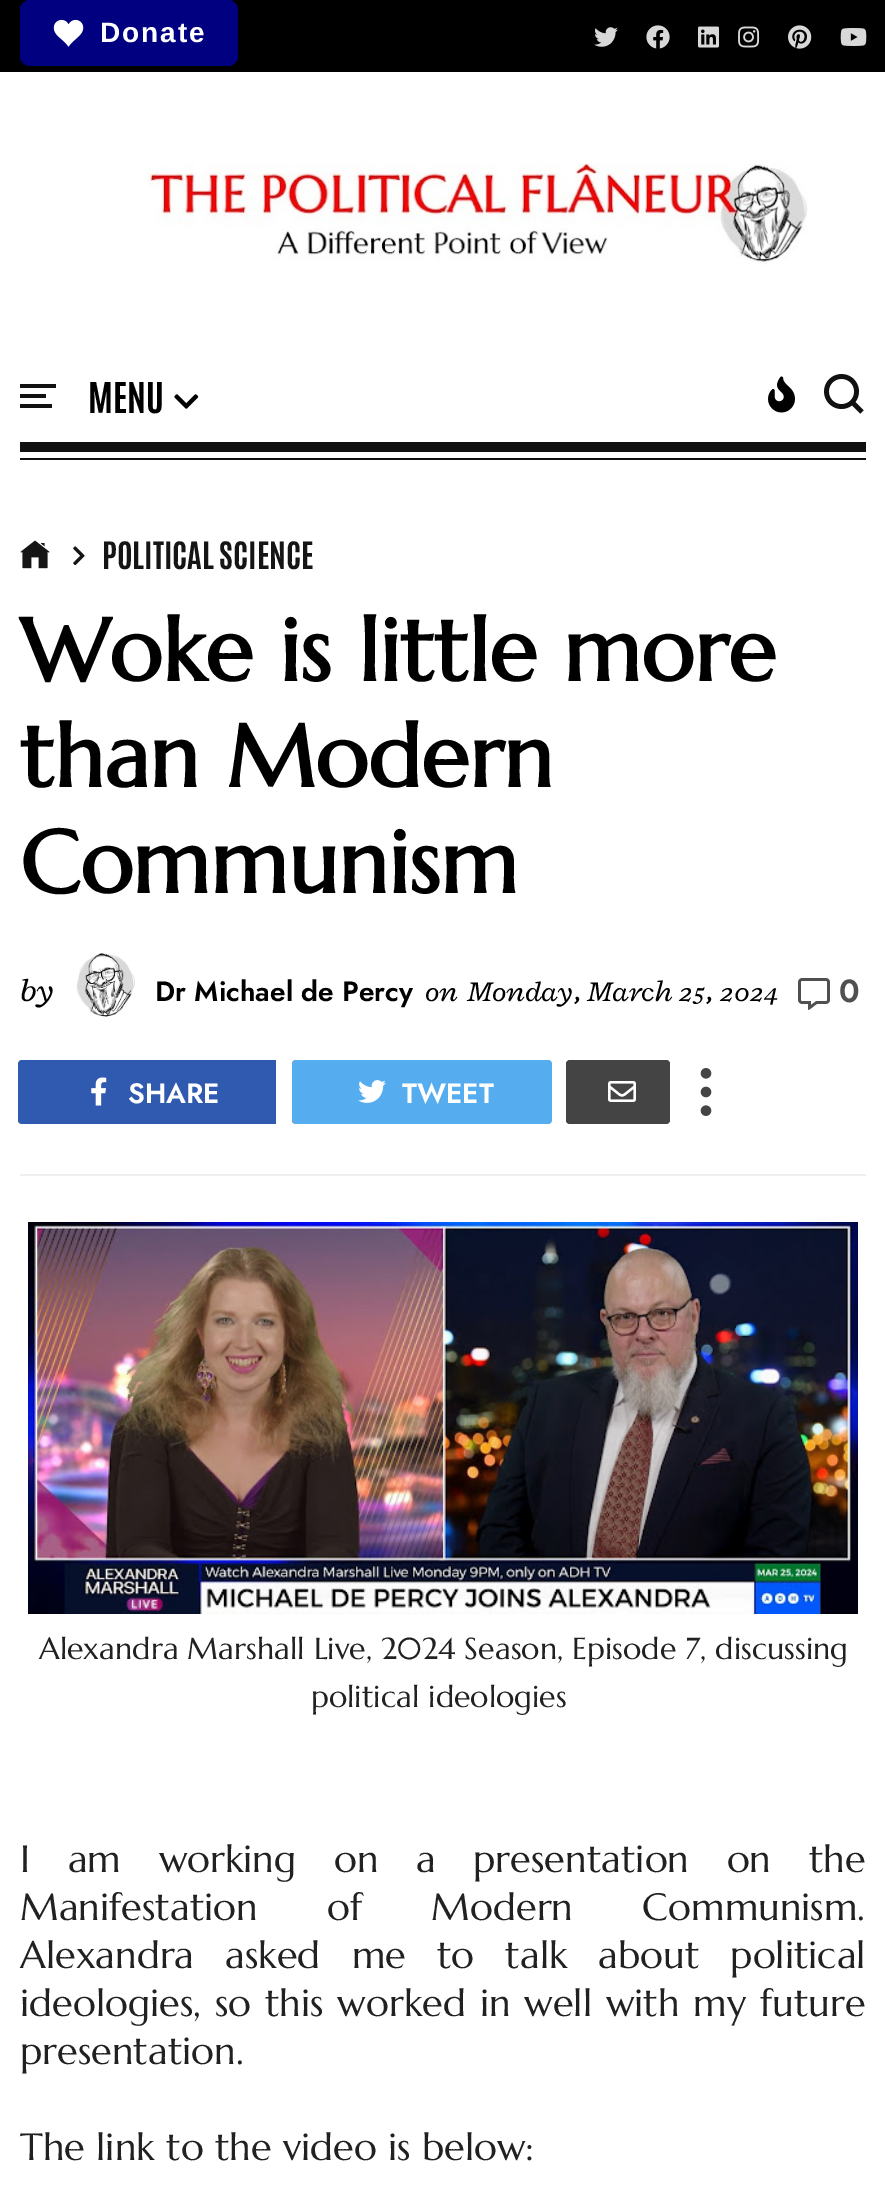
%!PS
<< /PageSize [885 2193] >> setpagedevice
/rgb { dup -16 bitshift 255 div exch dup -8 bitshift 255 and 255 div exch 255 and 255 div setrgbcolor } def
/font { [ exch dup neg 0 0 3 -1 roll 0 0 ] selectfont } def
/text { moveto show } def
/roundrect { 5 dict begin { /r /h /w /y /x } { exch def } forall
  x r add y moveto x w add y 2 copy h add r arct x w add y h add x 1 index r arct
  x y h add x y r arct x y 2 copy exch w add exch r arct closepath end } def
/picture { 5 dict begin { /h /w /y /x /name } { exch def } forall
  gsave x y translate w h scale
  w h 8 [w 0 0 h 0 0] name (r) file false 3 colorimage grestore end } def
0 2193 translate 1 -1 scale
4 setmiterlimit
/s1 { /Antonio-Bold 36 font 16#000000 rgb } def
/s2 { /Antonio-Bold 32 font 16#151515 rgb } def
/s3 { /Marcellus-Bold 88 font 16#000000 rgb } def
/s4 { /Radley-Italic 34 font 16#000000 rgb } def
/s5 { /Jost-SemiBold 28 font 16#000000 rgb } def
/s6 { /Radley-Italic 30 font 16#000000 rgb } def
/s7 { /Jost-SemiBold 32 font 16#505050 rgb } def
/s8 { /Jost-SemiBold 28 font 16#FFFFFF rgb } def
/s9 { /Marcellus-Regular 30.4 font 16#212121 rgb } def
/s10 { /Marcellus-Regular 38 font 16#212121 rgb } def
16#FFFFFF rgb
0 0 885 2193 rectfill
16#000000 rgb
0 0 885 72 rectfill
16#000081 rgb
20 0 218 66 10 roundrect fill
(pic1.raw) 53 19 31 28 picture
/LiberationSans-Bold 28 font
16#FFFFFF rgb
100 42 moveto 2 0 (Donate) ashow
(pic2.raw) 594 27 24 20 picture
(pic3.raw) 646 25 24 24 picture
(pic4.raw) 698 26 21 22 picture
(pic5.raw) 738 26 22 22 picture
(pic6.raw) 788 25 24 24 picture
(pic7.raw) 840 28 27 18 picture
(pic8.raw) 147 163 661 102 picture
16#111111 rgb
20 442 846 10 rectfill
20 384 36 4 rectfill
20 394 26 4 rectfill
20 404 32 4 rectfill
(pic9.raw) 768 376 27 37 picture
(pic10.raw) 824 374 40 40 picture
s1
(MENU) 88 413 text
(pic11.raw) 174 394 25 15 picture
16#111111 rgb
20 458 846 2 rectfill
(pic12.raw) 20 540 30 29 picture
(pic13.raw) 73 546 12 20 picture
s2
(POLITICAL SCIENCE) 102 569 text
s3
(Woke is little more) 20 681 text
(than Modern) 20 787 text
(Communism) 20 893 text
s4
(by) 20 1001 text
(pic14.raw) 76 953 59 64 picture
s5
(Dr Michael de Percy) 155 1001 text
s6
(on) 425 1001 text
(Monday, March 25, 2024) 468 1001 text
(pic15.raw) 798 978 32 32 picture
s7
(0) 839 1002 text
16#EFEFEF rgb
20 1174 846 2 rectfill
(pic16.raw) 18 1060 4 64 picture
gsave
18 1060 260 64 4 roundrect clip newpath
16#3059B0 rgb
22 1060 moveto 276 1060 lineto 276 1124 lineto 22 1124 lineto 20 1124 18 1122 18 1120 curveto 18 1064 lineto 18 1062 20 1060 22 1060 curveto closepath fill
grestore
(pic17.raw) 91 1077 16 29 picture
s8
(SHARE) 128 1103 text
(pic16.raw) 292 1060 4 64 picture
16#55ACEF rgb
292 1060 260 64 4 roundrect fill
(pic18.raw) 358 1080 28 23 picture
s8
(TWEET) 402 1103 text
(pic19.raw) 566 1060 104 64 picture
16#444444 rgb
566 1060 104 64 4 roundrect fill
(pic20.raw) 608 1081 28 21 picture
(pic21.raw) 700 1068 12 48 picture
(pic22.raw) 28 1222 830 392 picture
s9
(Alexandra Marshall Live, 2024 Season, Episode 7, discussing) 39 1659 text
(political ideologies) 311 1707 text
/Marcellus-Regular 38 font
20 1872 moveto 26.25 0 32 (I am working on a presentation on the) widthshow
20 1920 moveto 58 0 32 (Manifestation of Modern Communism.) widthshow
20 1968 moveto 19.75 0 32 (Alexandra asked me to talk about political) widthshow
20 2016 moveto 2.5 0 32 (ideologies, so this worked in well with my future) widthshow
(presentation.) 20 2064 text
(The link to the video is below:) 20 2160 text
showpage
